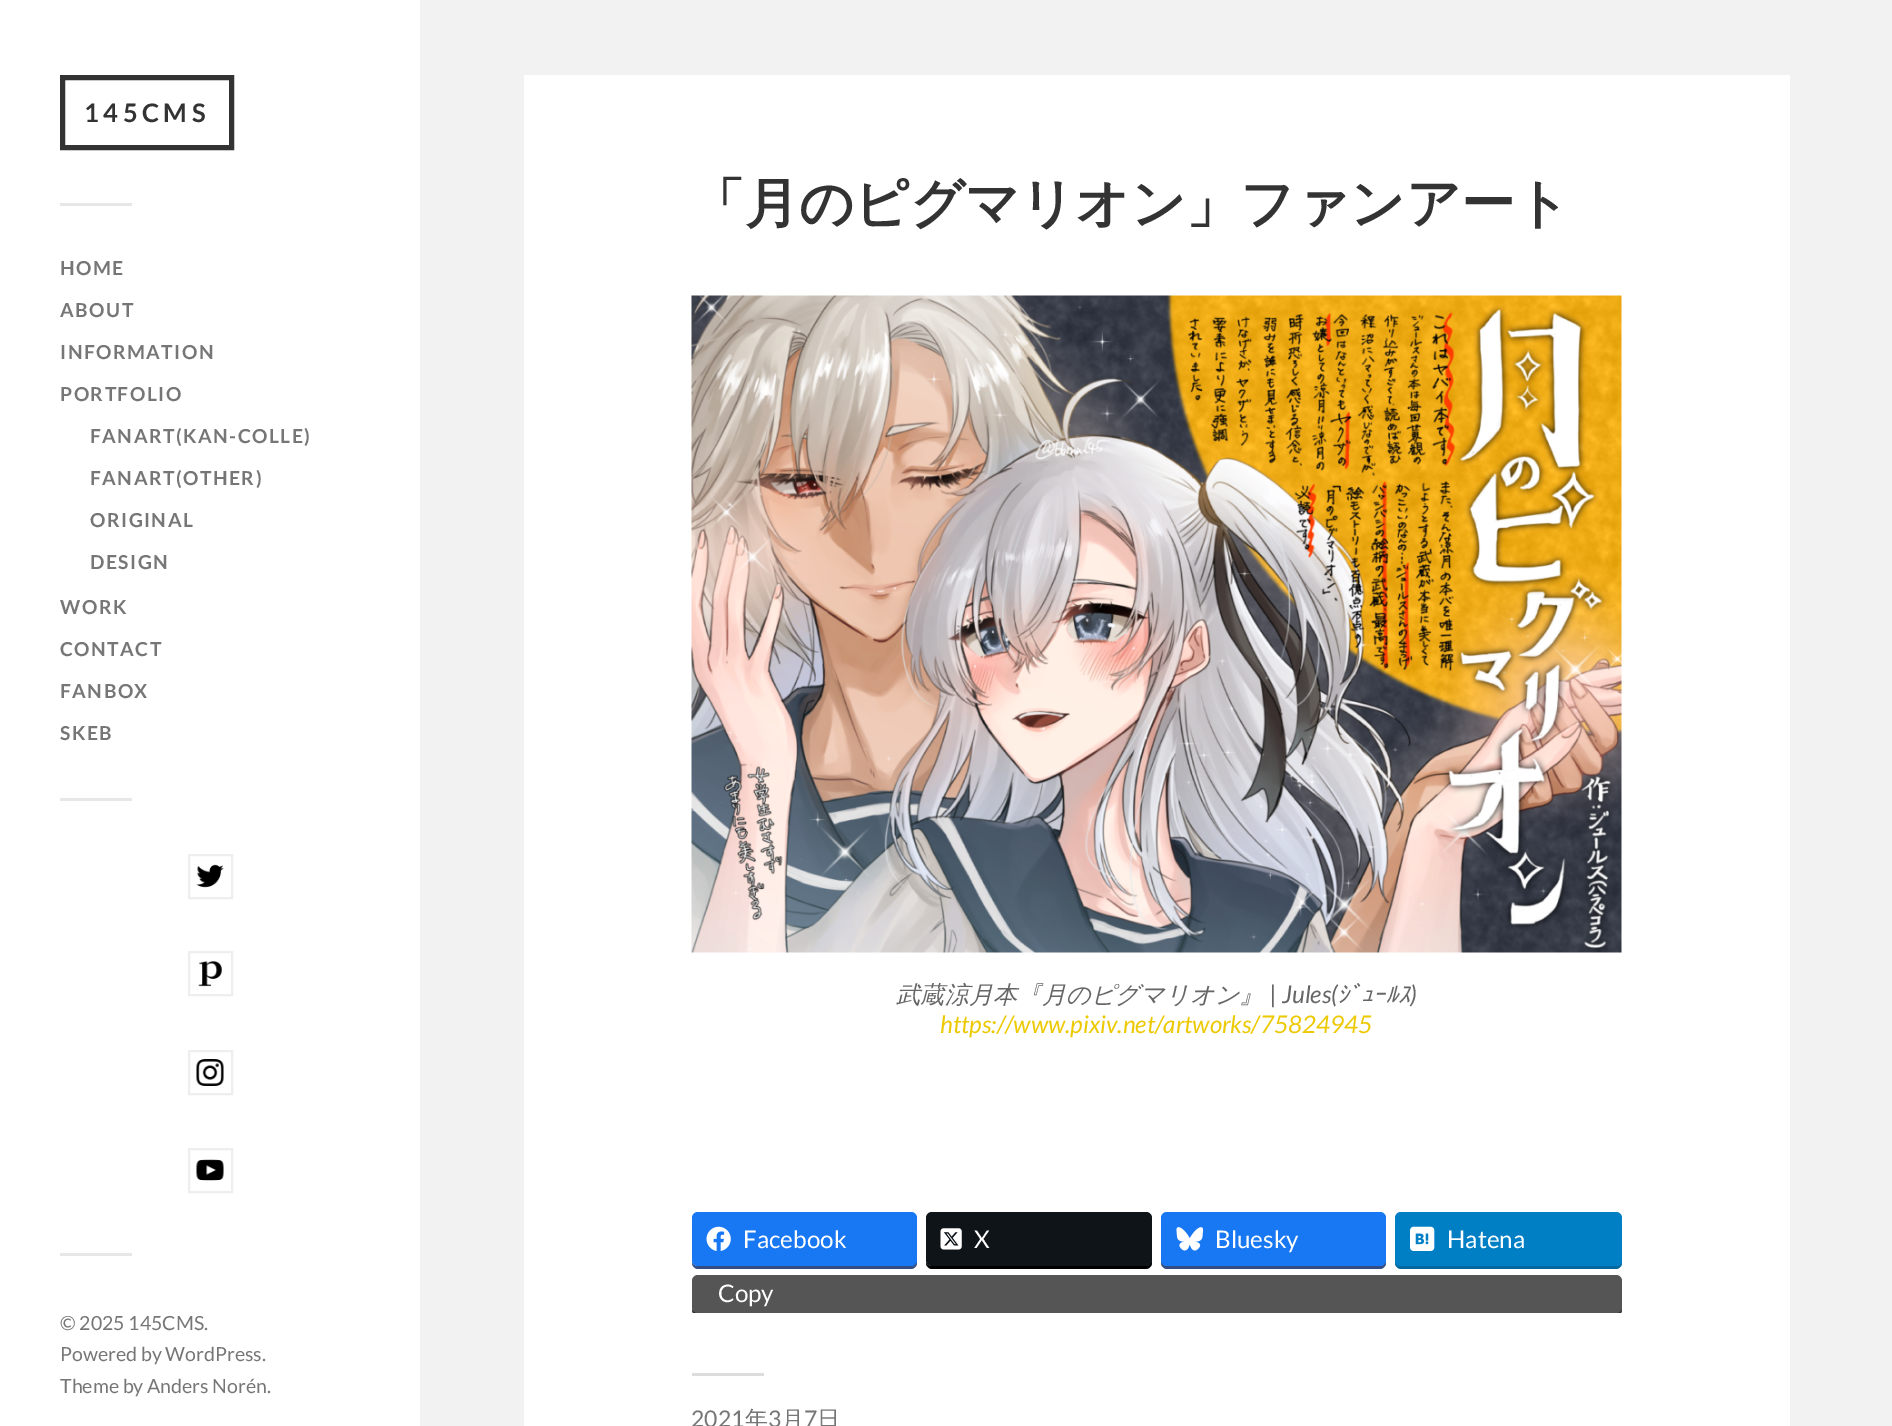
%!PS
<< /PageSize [1892 1426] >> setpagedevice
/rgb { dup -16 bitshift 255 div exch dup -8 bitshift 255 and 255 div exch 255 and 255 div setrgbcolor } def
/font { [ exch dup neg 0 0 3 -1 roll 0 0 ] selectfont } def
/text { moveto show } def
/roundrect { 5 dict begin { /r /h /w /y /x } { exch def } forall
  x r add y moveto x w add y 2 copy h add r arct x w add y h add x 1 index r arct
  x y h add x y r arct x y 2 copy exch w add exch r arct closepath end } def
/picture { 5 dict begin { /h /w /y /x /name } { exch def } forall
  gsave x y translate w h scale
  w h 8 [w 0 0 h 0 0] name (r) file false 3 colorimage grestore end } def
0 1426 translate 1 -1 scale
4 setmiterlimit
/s1 { /Lato-Regular 19.5 font 16#767676 rgb } def
/s2 { /WenQuanYiZenHei-Bold 54 font 16#333333 rgb } def
/s3 { /WenQuanYiZenHei-MediumItalic 24.25 font 16#666666 rgb } def
/s4 { /Lato-Italic 24.25 font 16#666666 rgb } def
/s5 { /IPAPGothic-Italic 24.25 font 16#666666 rgb } def
/s6 { /Lato-Italic 24.25 font 16#EDC902 rgb } def
/s7 { /Lato-Regular 24.25 font 16#FFFFFF rgb } def
/s8 { /Lato-Regular 23 font 16#767676 rgb } def
/s9 { /WenQuanYiZenHei-Medium 23 font 16#767676 rgb } def
16#F2F2F2 rgb
0 0 1892 1426 rectfill
16#FFFFFF rgb
0 0 420 1426 rectfill
16#333333 rgb
5 setlinewidth
62.5 77.5 169 70 rectstroke
/Lato-Bold 25.5 font
84 122 moveto 4.5 0 (145CMS) ashow
16#E7E7E7 rgb
60 203 72 3 rectfill
/Lato-Bold 19.25 font
16#767676 rgb
60 275 moveto 1.5 0 (HOME) ashow
60 317 moveto 1.5 0 (ABOUT) ashow
60 359 moveto 1.5 0 (INFORMATION) ashow
60 401 moveto 1.5 0 (PORTFOLIO) ashow
90 443 moveto 1.5 0 (FANART\(KAN-COLLE\)) ashow
90 485 moveto 1.5 0 (FANART\(OTHER\)) ashow
90 527 moveto 1.5 0 (ORIGINAL) ashow
90 569 moveto 1.5 0 (DESIGN) ashow
60 614 moveto 1.5 0 (WORK) ashow
60 656 moveto 1.5 0 (CONTACT) ashow
60 698 moveto 1.5 0 (FANBOX) ashow
60 740 moveto 1.5 0 (SKEB) ashow
16#E7E7E7 rgb
60 798 72 3 rectfill
16#EEEEEE rgb
2 setlinewidth
189 855 43 43 rectstroke
(pic1.raw) 196 864 28 24 picture
189 952 43 43 rectstroke
(pic2.raw) 198 961 24 26 picture
189 1051 43 43 rectstroke
(pic3.raw) 196 1059 28 27 picture
189 1149 43 43 rectstroke
(pic4.raw) 196 1159 28 22 picture
16#E7E7E7 rgb
60 1253 72 3 rectfill
s1
(© 2025 145CMS.) 60 1330 text
(Powered by WordPress.) 60 1361 text
(Theme by Anders Norén.) 60 1393 text
16#FFFFFF rgb
524 75 1266 1351 rectfill
s2
(「月のピグマリオン」ファンアート) 691 222 text
(pic5.raw) 691 295 931 658 picture
s3
(武蔵涼月本『月のピグマリオン』) 896 1003 text
s4
(| Jules\() 1270 1003 text
s5
(ｼﾞｭｰﾙｽ) 1337 1003 text
s4
(\)) 1410 1003 text
s6
(https://www.pixiv.net/artworks/75824945) 940 1033 text
16#344E84 rgb
692 1262 moveto 692 1263 lineto 692 1266 695 1269 698 1269 curveto 911 1269 lineto 914 1269 917 1266 917 1263 curveto 917 1221 lineto 916 1219 lineto 916 1260 lineto 916 1263 914 1266 910 1266 curveto 698 1266 lineto 695 1266 693 1265 692 1262 curveto closepath fill
16#1877F2 rgb
692 1212 225 54 6 roundrect fill
(pic6.raw) 706 1226 25 25 picture
s7
(Facebook) 743 1248 text
16#000000 rgb
926 1262 moveto 926 1263 lineto 926 1266 929 1269 932 1269 curveto 1146 1269 lineto 1149 1269 1152 1266 1152 1263 curveto 1152 1260 lineto 1152 1263 1149 1266 1146 1266 curveto 932 1266 lineto 929 1266 927 1265 926 1262 curveto closepath fill
16#0F1419 rgb
926 1212 226 54 6 roundrect fill
(pic7.raw) 940 1228 22 22 picture
s7
(X) 974 1248 text
16#344E84 rgb
1161 1260 moveto 1161 1263 lineto 1161 1266 1164 1269 1167 1269 curveto 1380 1269 lineto 1383 1269 1386 1266 1386 1263 curveto 1386 1260 lineto 1386 1263 1383 1266 1380 1266 curveto 1167 1266 lineto 1164 1266 1161 1263 1161 1260 curveto closepath fill
16#1877F2 rgb
1161 1212 225 54 6 roundrect fill
(pic8.raw) 1176 1227 28 24 picture
s7
(Bluesky) 1215 1248 text
16#00679F rgb
1395 1260 moveto 1395 1263 lineto 1395 1266 1398 1269 1401 1269 curveto 1616 1269 lineto 1619 1269 1622 1266 1622 1263 curveto 1622 1221 lineto 1622 1219 lineto 1622 1260 lineto 1622 1263 1619 1266 1616 1266 curveto 1401 1266 lineto 1398 1266 1395 1263 1395 1260 curveto closepath fill
16#007FC5 rgb
1395 1212 227 54 6 roundrect fill
(pic9.raw) 1410 1226 25 25 picture
s7
(Hatena) 1447 1248 text
gsave
692 1212 930 101 rectclip
16#333333 rgb
692 1309 moveto 692 1310 lineto 692 1313 695 1316 698 1316 curveto 1616 1316 lineto 1619 1316 1622 1313 1622 1310 curveto 1622 1284 lineto 1622 1282 lineto 1622 1306 lineto 1622 1310 1619 1312 1616 1312 curveto 698 1312 lineto 695 1312 693 1311 692 1309 curveto closepath fill
grestore
16#555555 rgb
692 1275 930 38 6 roundrect fill
s7
(Copy) 718 1302 text
16#DDDDDD rgb
692 1373 72 3 rectfill
s8
(2021) 691 1427 text
s9
(年) 745 1427 text
s8
(3) 768 1427 text
s9
(月) 781 1427 text
s8
(7) 804 1427 text
s9
(日) 817 1427 text
showpage
